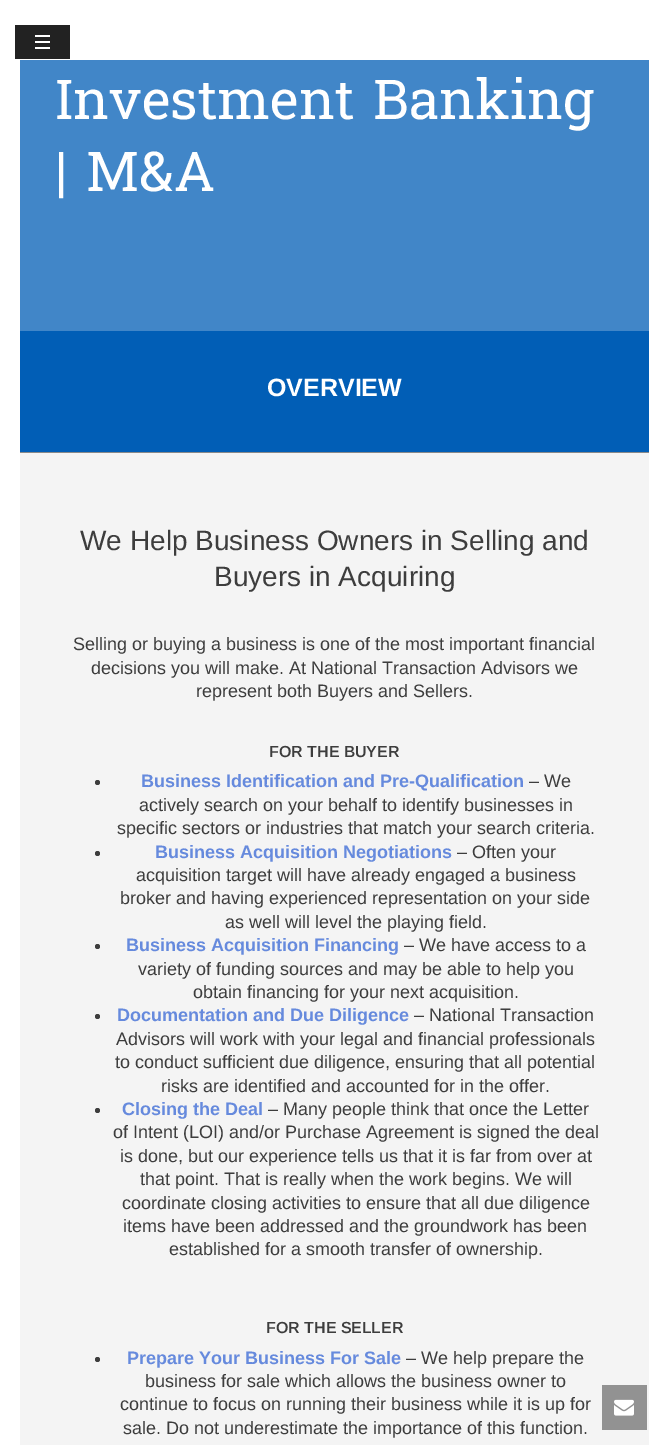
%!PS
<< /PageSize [669 1445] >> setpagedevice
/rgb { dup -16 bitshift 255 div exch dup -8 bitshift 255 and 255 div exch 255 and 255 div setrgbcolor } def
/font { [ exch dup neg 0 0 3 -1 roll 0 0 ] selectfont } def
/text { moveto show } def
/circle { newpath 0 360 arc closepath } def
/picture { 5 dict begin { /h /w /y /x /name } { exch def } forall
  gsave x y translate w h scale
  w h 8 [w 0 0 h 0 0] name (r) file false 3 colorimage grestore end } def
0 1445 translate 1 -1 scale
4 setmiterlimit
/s1 { /Hanuman-Regular 55 font 16#FFFFFF rgb } def
/s2 { /Arimo-Bold 25 font 16#FFFFFF rgb } def
/s3 { /Arimo-Regular 28 font 16#3D3D3D rgb } def
/s4 { /Arimo-Regular 18 font 16#3D3D3D rgb } def
/s5 { /Arimo-SemiBold 16 font 16#3D3D3D rgb } def
/s6 { /Arimo-Bold 18 font 16#668ADD rgb } def
16#FFFFFF rgb
0 0 669 1445 rectfill
16#222222 rgb
15 25 55 34 rectfill
16#FFFFFF rgb
35 41 15 2 rectfill
35 35 15 2 rectfill
35 47 15 2 rectfill
16#4186C8 rgb
20 60 629 271 rectfill
s1
(Investment Banking) 55 119 text
(| M&A) 55 191 text
16#015EB6 rgb
20 331 629 121 rectfill
s2
(OVERVIEW) 267 396 text
16#F4F4F4 rgb
20 453 629 992 rectfill
16#898989 rgb
20 452 629 1 rectfill
s3
(We Help Business Owners in Selling and) 80 550 text
(Buyers in Acquiring) 214 586 text
s4
(Selling or buying a business is one of the most important financial) 73 650 text
(decisions you will make. At National Transaction Advisors we) 91 674 text
(represent both Buyers and Sellers.) 196 697 text
s5
(FOR THE BUYER) 269 757 text
97.5 782.5 2.5 circle fill
s6
(Business Identification and Pre-Qualification) 141 787 text
s4
(– We) 529 787 text
(actively search on your behalf to identify businesses in) 139 811 text
(specific sectors or industries that match your search criteria.) 117 834 text
97.5 853.5 2.5 circle fill
s6
(Business Acquisition Negotiations) 155 858 text
s4
(– Often your) 457 858 text
(acquisition target will have already engaged a business) 136 881 text
(broker and having experienced representation on your side) 120 904 text
(as well will level the playing field.) 225 928 text
97.5 946.5 2.5 circle fill
s6
(Business Acquisition Financing) 126 951 text
s4
(– We have access to a) 404 951 text
(variety of funding sources and may be able to help you) 138 975 text
(obtain financing for your next acquisition.) 193 998 text
97.5 1016.5 2.5 circle fill
s6
(Documentation and Due Diligence) 117 1021 text
s4
(– National Transaction) 414 1021 text
(Advisors will work with your legal and financial professionals) 116 1045 text
(to conduct sufficient due diligence, ensuring that all potential) 115 1068 text
(risks are identified and accounted for in the offer.) 161 1092 text
97.5 1110.5 2.5 circle fill
s6
(Closing the Deal) 122 1115 text
s4
(– Many people think that once the Letter) 268 1115 text
(of Intent \(LOI\) and/or Purchase Agreement is signed the deal) 113 1138 text
(is done, but our experience tells us that it is far from over at) 120 1162 text
(that point. That is really when the work begins. We will) 140 1185 text
(coordinate closing activities to ensure that all due diligence) 122 1209 text
(items have been addressed and the groundwork has been) 123 1232 text
(established for a smooth transfer of ownership.) 169 1255 text
s5
(FOR THE SELLER) 266 1333 text
97.5 1359.5 2.5 circle fill
s6
(Prepare Your Business For Sale) 127 1364 text
s4
(– We help prepare the) 406 1364 text
(business for sale which allows the business owner to) 145 1387 text
(continue to focus on running their business while it is up for) 120 1410 text
(sale. Do not underestimate the importance of this function.) 123 1434 text
16#929292 rgb
602 1385 45 45 rectfill
(pic1.raw) 614 1399 20 17 picture
showpage
